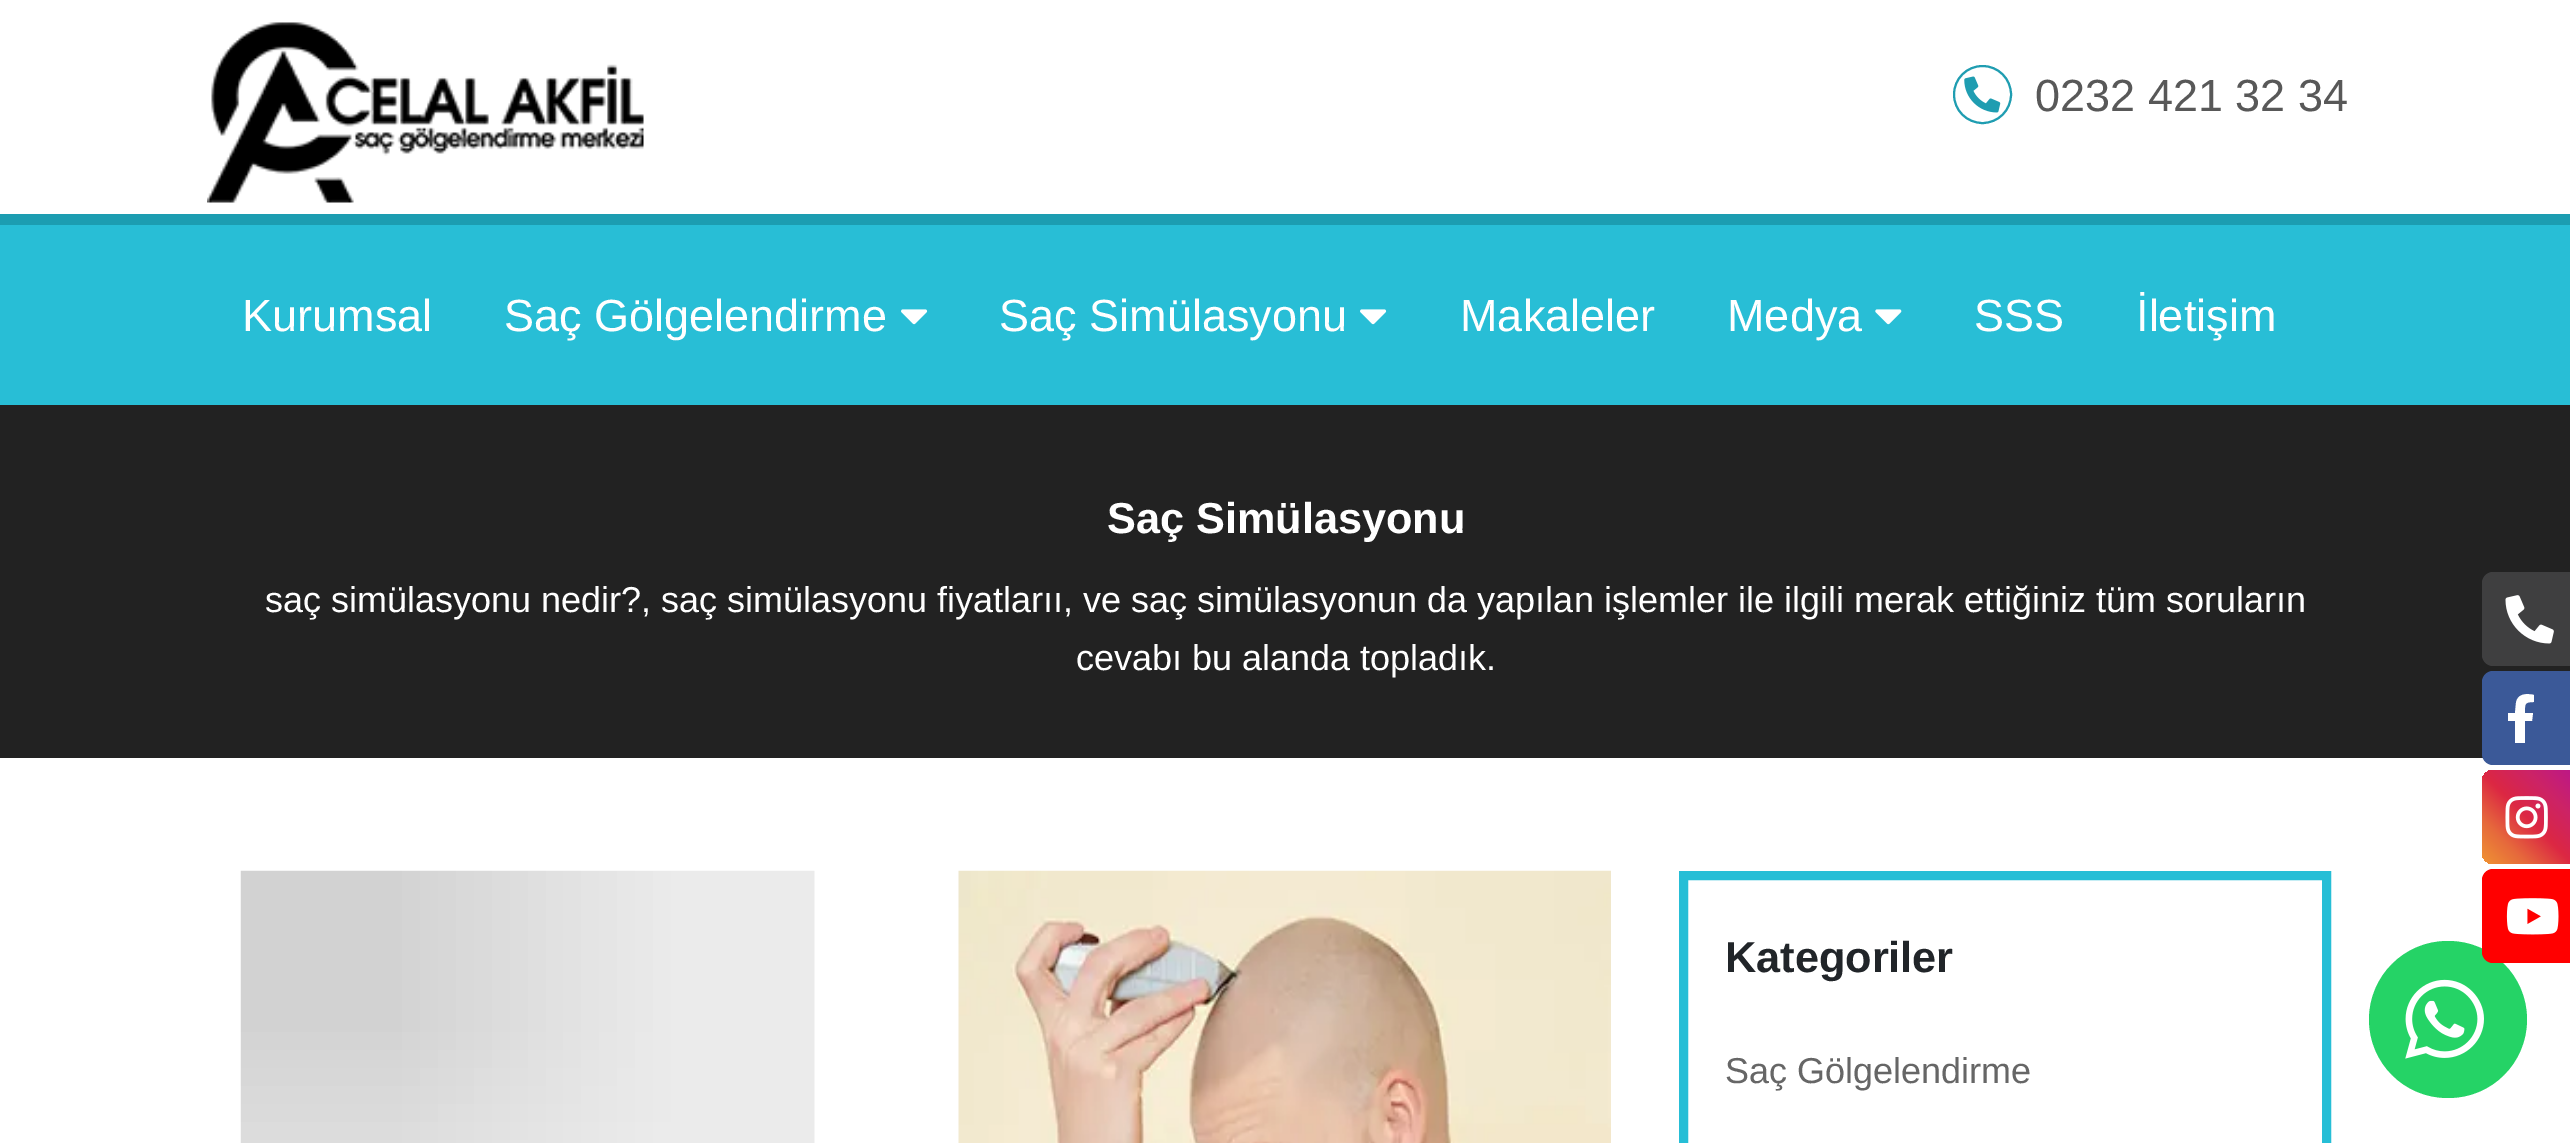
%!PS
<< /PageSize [2570 1143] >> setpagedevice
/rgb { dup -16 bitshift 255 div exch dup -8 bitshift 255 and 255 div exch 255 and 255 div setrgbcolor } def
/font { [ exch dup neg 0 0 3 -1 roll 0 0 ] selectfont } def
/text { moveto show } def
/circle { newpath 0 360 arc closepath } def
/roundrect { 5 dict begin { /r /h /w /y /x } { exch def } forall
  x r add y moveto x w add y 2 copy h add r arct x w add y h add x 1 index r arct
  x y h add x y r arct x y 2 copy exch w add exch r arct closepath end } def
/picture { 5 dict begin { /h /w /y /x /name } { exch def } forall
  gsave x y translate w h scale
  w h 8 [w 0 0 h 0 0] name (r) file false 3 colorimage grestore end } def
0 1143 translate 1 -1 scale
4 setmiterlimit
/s1 { /LiberationSans-Regular 45 font 16#585858 rgb } def
/s2 { /LiberationSans-Regular 45 font 16#FFFFFF rgb } def
/s3 { /LiberationSans-Bold 43.25 font 16#FFFFFF rgb } def
/s4 { /LiberationSans-Regular 36 font 16#FFFFFF rgb } def
/s5 { /LiberationSans-Bold 43.25 font 16#212529 rgb } def
/s6 { /LiberationSans-Regular 36 font 16#666666 rgb } def
16#FFFFFF rgb
0 0 2570 1143 rectfill
(pic1.raw) 207 22 437 181 picture
16#1F9DB1 rgb
2 setlinewidth
1982.5 94.5 28.5 circle stroke
(pic2.raw) 1964 76 37 37 picture
s1
(0232 421 32 34) 2035 111 text
16#1C9DB1 rgb
0 214 2570 11 rectfill
16#28BED6 rgb
0 225 2570 180 rectfill
s2
(Kurumsal) 242 331 text
(Saç Gölgelendirme) 504 331 text
(pic3.raw) 901 309 27 16 picture
(Saç Simülasyonu) 999 331 text
(pic3.raw) 1360 309 27 16 picture
(Makaleler) 1460 331 text
(Medya) 1727 331 text
(pic4.raw) 1875 309 27 16 picture
(SSS) 1974 331 text
(İletişim) 2136 331 text
16#222222 rgb
0 405 2570 353 rectfill
s3
(Saç Simülasyonu) 1107 533 text
s4
(saç simülasyonu nedir?, saç simülasyonu fiyatlarıı, ve saç simülasyonun da yapılan işlemler ile ilgili merak ettiğiniz tüm soruların) 265 612 text
(cevabı bu alanda topladık.) 1076 670 text
16#3F3F40 rgb
2493 572 moveto 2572 572 lineto 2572 666 lineto 2493 666 lineto 2487 666 2482 661 2482 655 curveto 2482 583 lineto 2482 577 2487 572 2493 572 curveto closepath fill
(pic5.raw) 2505 595 49 49 picture
16#3B5998 rgb
2493 671 moveto 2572 671 lineto 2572 765 lineto 2493 765 lineto 2487 765 2482 760 2482 754 curveto 2482 682 lineto 2482 676 2487 671 2493 671 curveto closepath fill
16#FFFFFF rgb
2532 721 moveto 2533 713 lineto 2525 713 lineto 2525 704 2524 702 2534 702 curveto 2534 695 lineto 2526 693 2517 694 2516 703 curveto 2515 713 lineto 2508 713 lineto 2508 721 lineto 2515 721 lineto 2515 743 lineto 2525 743 lineto 2525 721 lineto closepath fill
gsave 2493 770 moveto 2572 770 lineto 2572 864 lineto 2493 864 lineto 2487 864 2482 859 2482 853 curveto 2482 781 lineto 2482 775 2487 770 2493 770 curveto closepath clip newpath
<< /ShadingType 2 /ColorSpace /DeviceRGB /Coords [2481 863 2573 771] /Extend [true true] /Function << /FunctionType 3 /Domain [0 1] /Functions [<< /FunctionType 2 /Domain [0 1] /C0 [0.941 0.58 0.2] /C1 [0.902 0.408 0.235] /N 1 >> << /FunctionType 2 /Domain [0 1] /C0 [0.902 0.408 0.235] /C1 [0.863 0.153 0.263] /N 1 >> << /FunctionType 2 /Domain [0 1] /C0 [0.863 0.153 0.263] /C1 [0.8 0.137 0.4] /N 1 >> << /FunctionType 2 /Domain [0 1] /C0 [0.8 0.137 0.4] /C1 [0.737 0.094 0.533] /N 1 >>] /Bounds [0.25 0.5 0.75] /Encode [0 1 0 1 0 1 0 1] >> >> shfill grestore
(pic6.raw) 2505 796 43 43 picture
16#25D366 rgb
2369 941 158 157 78.5 roundrect fill
16#FF0000 rgb
2493 869 moveto 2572 869 lineto 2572 963 lineto 2493 963 lineto 2487 963 2482 958 2482 952 curveto 2482 880 lineto 2482 874 2487 869 2493 869 curveto closepath fill
(pic7.raw) 2506 898 53 37 picture
(pic8.raw) 240 870 575 273 picture
(pic9.raw) 958 870 653 273 picture
16#26BED6 rgb
9 setlinewidth
1683.5 875.5 643 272 rectstroke
s5
(Kategoriler) 1725 972 text
s6
(Saç Gölgelendirme) 1725 1083 text
(pic10.raw) 2405 979 79 80 picture
showpage
